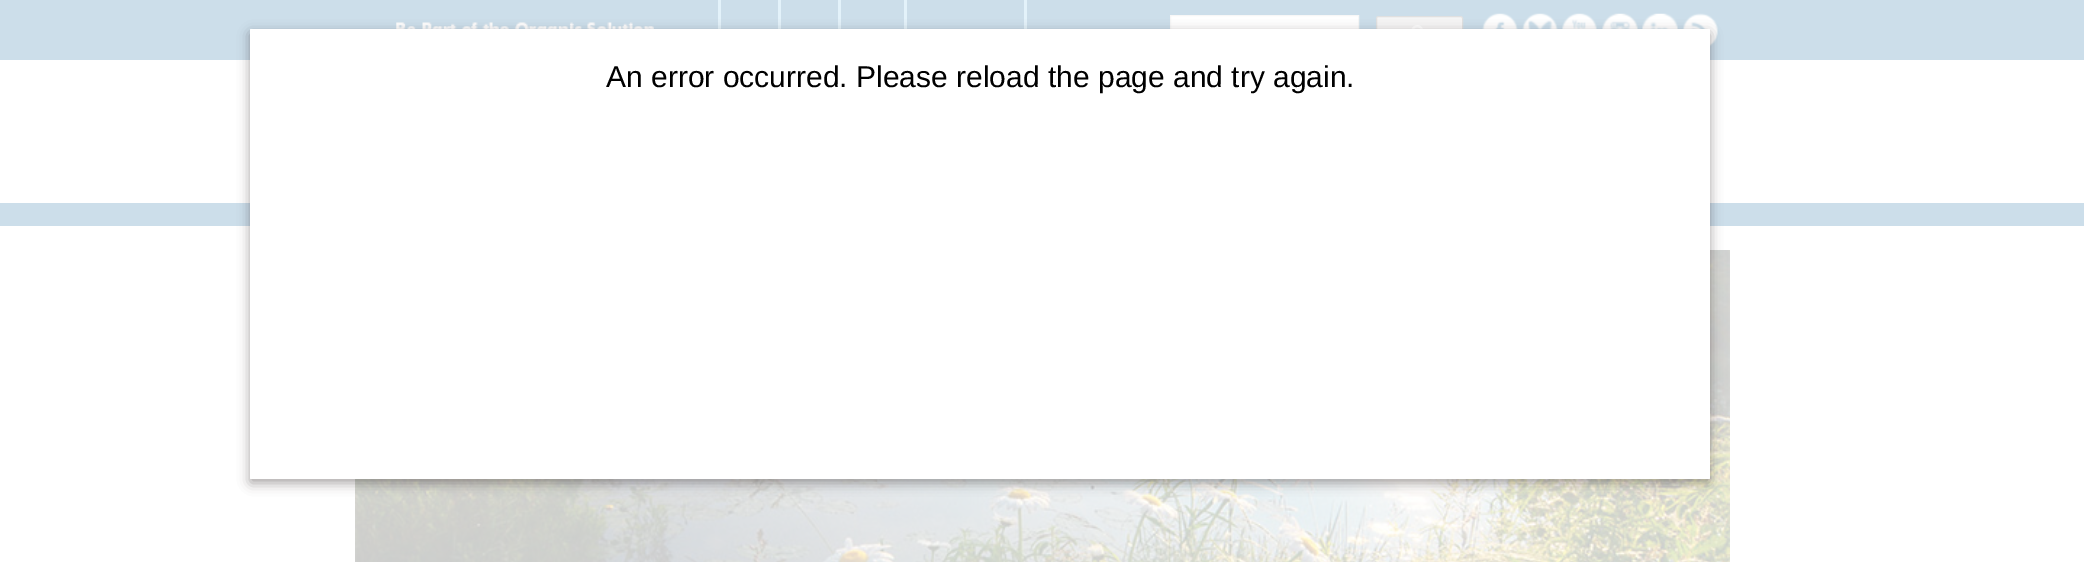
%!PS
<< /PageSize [2084 562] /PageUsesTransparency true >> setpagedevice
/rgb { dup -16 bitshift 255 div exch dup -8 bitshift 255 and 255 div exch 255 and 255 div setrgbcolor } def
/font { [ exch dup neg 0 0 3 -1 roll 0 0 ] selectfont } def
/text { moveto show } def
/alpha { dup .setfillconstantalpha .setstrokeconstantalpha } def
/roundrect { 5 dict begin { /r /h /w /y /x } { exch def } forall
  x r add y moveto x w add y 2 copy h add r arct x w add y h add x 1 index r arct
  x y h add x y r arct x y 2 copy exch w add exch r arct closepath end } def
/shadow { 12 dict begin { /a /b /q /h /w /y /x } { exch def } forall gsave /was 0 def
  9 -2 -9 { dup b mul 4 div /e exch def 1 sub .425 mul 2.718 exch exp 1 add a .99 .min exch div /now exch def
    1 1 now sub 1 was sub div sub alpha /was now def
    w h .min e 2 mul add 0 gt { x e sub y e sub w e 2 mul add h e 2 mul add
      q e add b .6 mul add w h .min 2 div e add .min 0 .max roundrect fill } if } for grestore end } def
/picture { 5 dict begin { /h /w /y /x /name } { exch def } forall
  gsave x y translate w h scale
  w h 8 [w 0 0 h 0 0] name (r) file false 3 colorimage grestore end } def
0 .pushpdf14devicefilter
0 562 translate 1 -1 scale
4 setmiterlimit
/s1 { /LiberationSans-Regular 30 font 16#000000 rgb } def
16#FFFFFF rgb
0 0 2084 562 rectfill
16#CCDEEA rgb
0 0 2084 60 rectfill
(pic1.raw) 396 22 258 7 picture
16#E3F2FA rgb
718 0 3 29 rectfill
778 0 3 29 rectfill
838 0 3 29 rectfill
904 0 3 29 rectfill
1024 0 3 29 rectfill
(pic2.raw) 1482 13 36 16 picture
(pic3.raw) 1522 13 36 16 picture
(pic4.raw) 1562 13 36 16 picture
(pic5.raw) 1602 13 36 16 picture
(pic6.raw) 1642 13 36 16 picture
(pic7.raw) 1682 13 36 34 picture
16#FFFFFF rgb
1171 16 187 13 rectfill
16#F7F7F7 rgb
1170.5 15.5 188 35 rectstroke
16#F5F5F5 rgb
1376.5 16.5 86 33 2 roundrect gsave fill grestore
16#E0E0E0 rgb
stroke
(pic8.raw) 1411 25 12 4 picture
16#CCDEEA rgb
0 203 2084 23 rectfill
(pic9.raw) 355 250 1375 312 picture
16#221919 rgb
250 33 1460 450 1 6 0.4 shadow
16#FFFFFF rgb
250 29 1460 450 1 roundrect fill
s1
(An error occurred. Please reload the page and try again.) 606 87 text
.poppdf14devicefilter showpage
